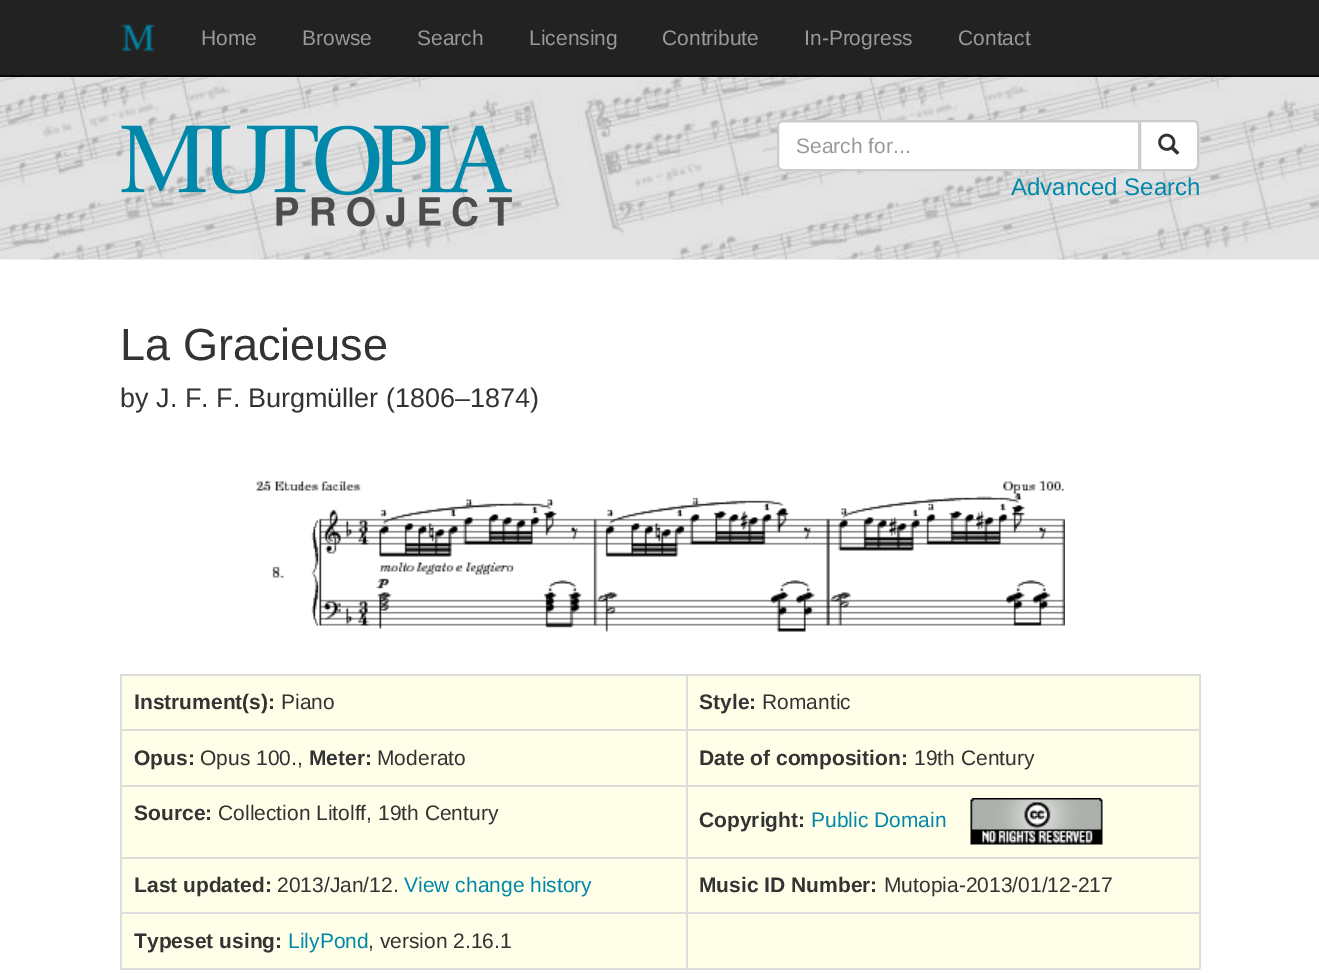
%!PS
<< /PageSize [1319 973] >> setpagedevice
/rgb { dup -16 bitshift 255 div exch dup -8 bitshift 255 and 255 div exch 255 and 255 div setrgbcolor } def
/font { [ exch dup neg 0 0 3 -1 roll 0 0 ] selectfont } def
/text { moveto show } def
/picture { 5 dict begin { /h /w /y /x /name } { exch def } forall
  gsave x y translate w h scale
  w h 8 [w 0 0 h 0 0] name (r) file false 3 colorimage grestore end } def
0 973 translate 1 -1 scale
4 setmiterlimit
/s1 { /LiberationSans-Regular 21 font 16#999999 rgb } def
/s2 { /LiberationSans-Regular 24 font 16#0088AA rgb } def
/s3 { /LiberationSans-Regular 45 font 16#333333 rgb } def
/s4 { /LiberationSans-Regular 27 font 16#333333 rgb } def
/s5 { /LiberationSans-Bold 21 font 16#333333 rgb } def
/s6 { /LiberationSans-Regular 21 font 16#333333 rgb } def
/s7 { /LiberationSans-Regular 21 font 16#0088AA rgb } def
16#FFFFFF rgb
0 0 1319 973 rectfill
16#222222 rgb
0 0 1319 75 rectfill
16#080808 rgb
0 75 1319 2 rectfill
(pic1.raw) 121 24 34 28 picture
s1
(Home) 201 45 text
(Browse) 302 45 text
(Search) 417 45 text
(Licensing) 529 45 text
(Contribute) 662 45 text
(In-Progress) 804 45 text
(Contact) 958 45 text
(pic2.raw) 0 77 1319 183 picture
(pic3.raw) 121 125 391 102 picture
16#FFFFFF rgb
783 120 moveto 1140 120 lineto 1140 171 lineto 783 171 lineto 779.5 171 777 168.5 777 165 curveto 777 126 lineto 777 122.5 779.5 120 783 120 curveto closepath fill
16#ECECEC rgb
783 123 moveto 1138 123 lineto 1138 170 lineto 1139 170 lineto 1139 122 lineto 784 122 lineto 782 122 781 123 780 124 curveto closepath fill
16#CCCCCC rgb
2 setlinewidth
783 121 moveto 1139 121 lineto 1139 170 lineto 783 170 lineto 780 170 778 168 778 165 curveto 778 126 lineto 778 123 780 121 783 121 curveto closepath stroke
s1
(Search for...) 796 153 text
16#FFFFFF rgb
1140 121 moveto 1193 121 lineto 1196 121 1198 123 1198 126 curveto 1198 165 lineto 1198 168 1196 170 1193 170 curveto 1140 170 lineto closepath gsave fill grestore
16#CCCCCC rgb
stroke
(pic4.raw) 1158 133 22 22 picture
s2
(Advanced Search) 1011 195 text
s3
(La Gracieuse) 120 360 text
s4
(by J. F. F. Burgmüller \(1806–1874\)) 120 407 text
(pic5.raw) 256 480 809 152 picture
16#FFFEE8 rgb
122 676 1077 292 rectfill
16#DDDDDD rgb
120 674 1080 2 rectfill
1199 674 2 295 rectfill
120 968 1080 2 rectfill
120 674 2 295 rectfill
s5
(Instrument\(s\):) 134 709 text
s6
(Piano) 281 709 text
16#DDDDDD rgb
686 729 514 2 rectfill
686 785 514 2 rectfill
686 857 514 2 rectfill
686 912 514 2 rectfill
686 912 2 57 rectfill
120 912 567 2 rectfill
686 857 2 57 rectfill
120 857 567 2 rectfill
686 785 2 73 rectfill
120 785 567 2 rectfill
686 729 2 57 rectfill
120 729 567 2 rectfill
686 674 2 57 rectfill
s5
(Style:) 699 709 text
s6
(Romantic) 762 709 text
s5
(Opus:) 134 765 text
s6
(Opus 100.,) 200 765 text
s5
(Meter:) 309 765 text
s6
(Moderato) 377 765 text
s5
(Date of composition:) 699 765 text
s6
(19th Century) 914 765 text
s5
(Source:) 134 820 text
s6
(Collection Litolff, 19th Century) 218 820 text
s5
(Copyright:) 699 827 text
s7
(Public Domain) 811 827 text
(pic6.raw) 970 798 133 47 picture
s5
(Last updated:) 134 892 text
s6
(2013/Jan/12.) 277 892 text
s7
(View change history) 404 892 text
s5
(Music ID Number:) 699 892 text
s6
(Mutopia-2013/01/12-217) 884 892 text
s5
(Typeset using:) 134 948 text
s7
(LilyPond) 288 948 text
s6
(, version 2.16.1) 368 948 text
showpage
